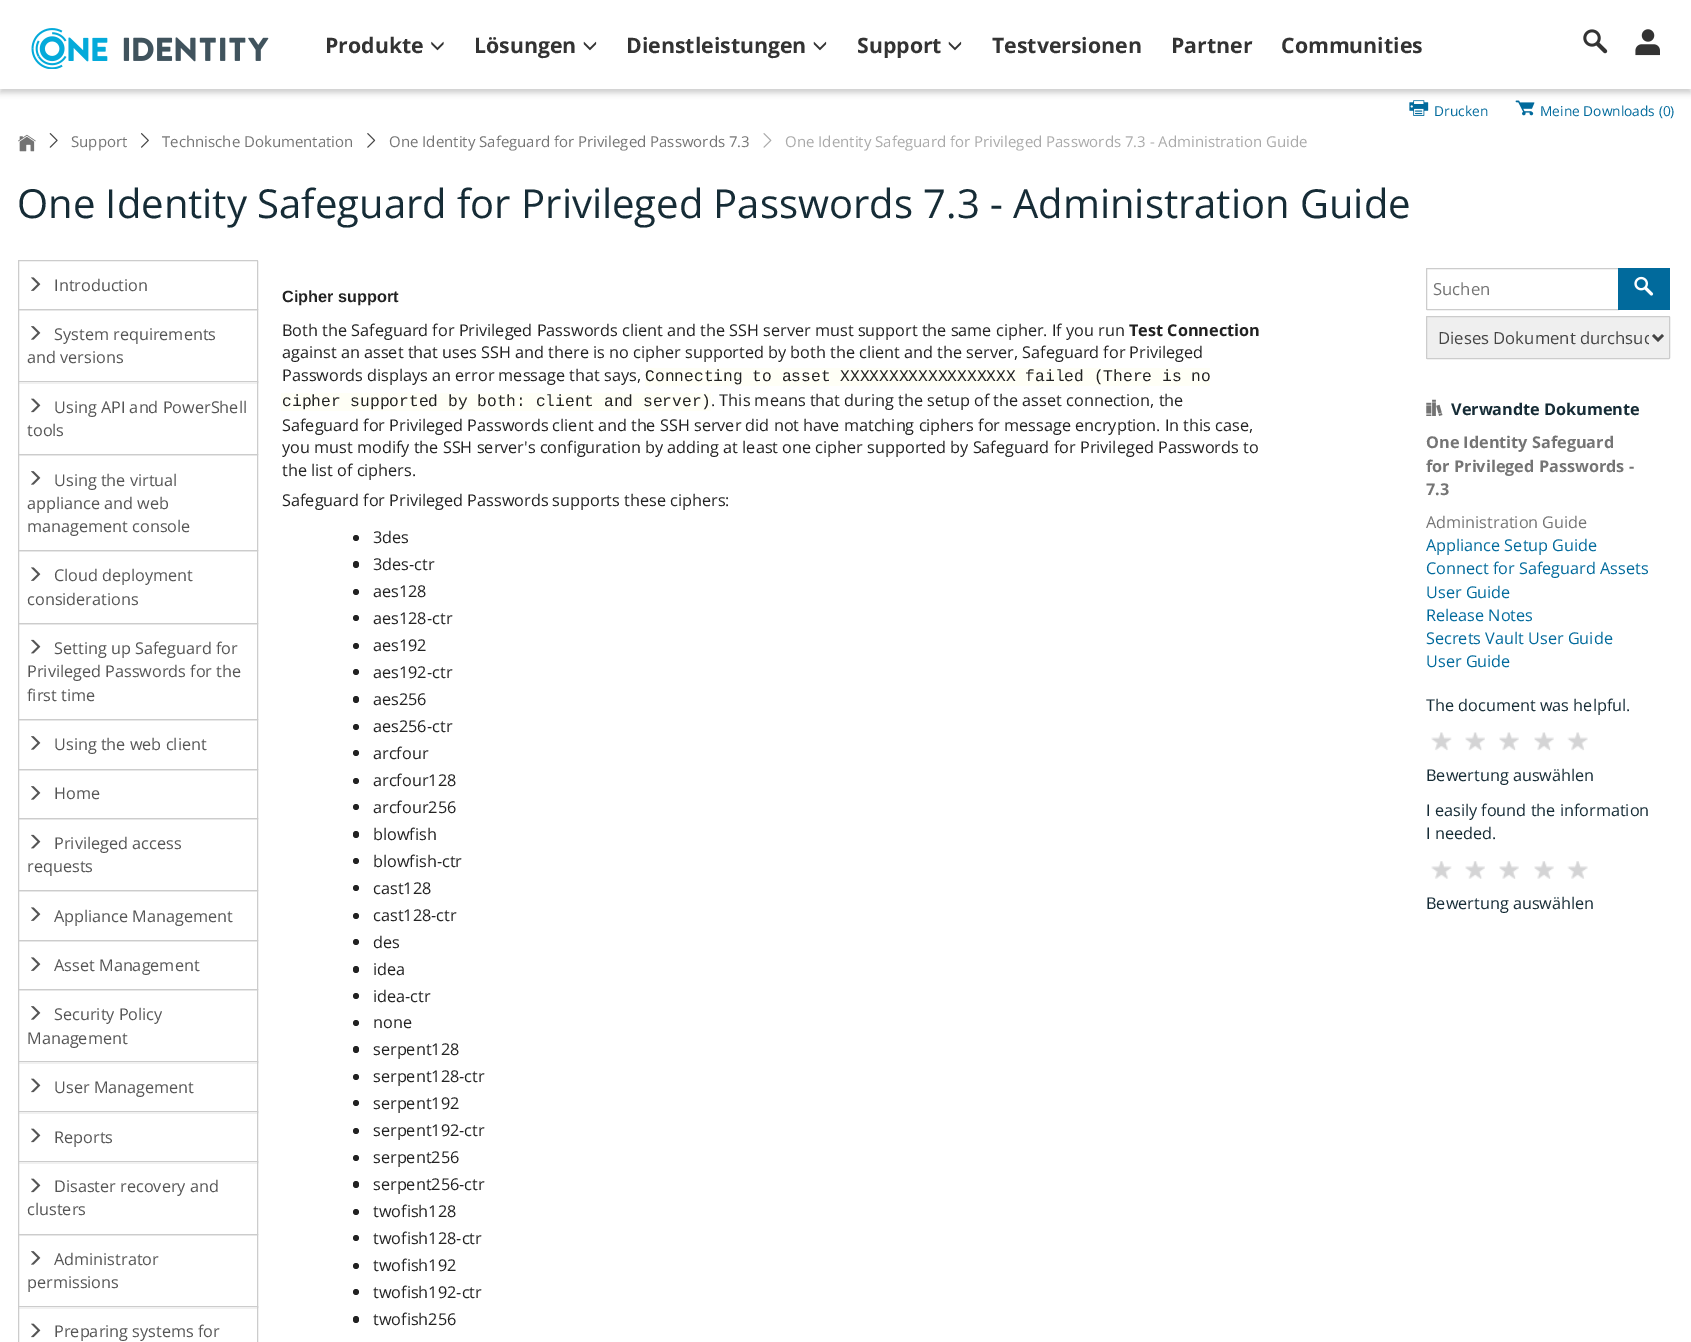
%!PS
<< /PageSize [1691 1342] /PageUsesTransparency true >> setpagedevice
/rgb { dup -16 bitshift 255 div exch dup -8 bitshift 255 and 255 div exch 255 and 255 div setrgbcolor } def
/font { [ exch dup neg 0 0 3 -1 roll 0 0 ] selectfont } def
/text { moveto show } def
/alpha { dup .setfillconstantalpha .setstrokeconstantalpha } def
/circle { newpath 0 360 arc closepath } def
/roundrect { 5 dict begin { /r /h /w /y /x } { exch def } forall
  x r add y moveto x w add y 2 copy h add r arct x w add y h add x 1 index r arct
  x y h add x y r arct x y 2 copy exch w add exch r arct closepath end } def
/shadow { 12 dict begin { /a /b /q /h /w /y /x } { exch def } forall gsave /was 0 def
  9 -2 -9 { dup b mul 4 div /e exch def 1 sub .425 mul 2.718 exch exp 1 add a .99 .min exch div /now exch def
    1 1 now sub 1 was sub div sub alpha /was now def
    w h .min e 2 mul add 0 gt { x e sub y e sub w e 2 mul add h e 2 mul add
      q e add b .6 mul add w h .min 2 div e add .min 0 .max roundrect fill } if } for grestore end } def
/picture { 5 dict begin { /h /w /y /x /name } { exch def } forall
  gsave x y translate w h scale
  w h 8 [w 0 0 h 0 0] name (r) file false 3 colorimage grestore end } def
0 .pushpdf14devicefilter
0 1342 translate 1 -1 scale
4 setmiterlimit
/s1 { /OpenSans-Bold 21.25 font 16#333333 rgb } def
/s2 { /OpenSans-Regular 13.75 font 16#016A9C rgb } def
/s3 { /OpenSans-Regular 15 font 16#757575 rgb } def
/s4 { /OpenSans-Regular 15 font 16#AAAAAA rgb } def
/s5 { /OpenSans-Regular 40 font 16#162C36 rgb } def
/s6 { /OpenSans-Regular 16.25 font 16#555555 rgb } def
/s7 { /LiberationSans-Bold 16.25 font 16#222222 rgb } def
/s8 { /OpenSans-Regular 16.25 font 16#222222 rgb } def
/s9 { /OpenSans-Bold 16.25 font 16#222222 rgb } def
/s10 { /LiberationMono-Regular 16.25 font 16#222222 rgb } def
/s11 { /OpenSans-Regular 16.7 font 16#757575 rgb } def
/s12 { /OpenSans-Regular 16.7 font 16#444444 rgb } def
/s13 { /OpenSans-Bold 16.25 font 16#162C36 rgb } def
/s14 { /OpenSans-Bold 16.25 font 16#757575 rgb } def
/s15 { /OpenSans-Regular 16.25 font 16#757575 rgb } def
/s16 { /OpenSans-Regular 16.25 font 16#016A9C rgb } def
/s17 { /OpenSans-Regular 16.25 font 16#162C36 rgb } def
16#FFFFFF rgb
0 0 1691 1342 rectfill
(pic6.raw) 1409 100 20 16 picture
(pic7.raw) 1515 100 20 16 picture
gsave
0 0 moveto 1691 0 lineto 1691 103 lineto 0 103 lineto closepath 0 -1 moveto 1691 -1 lineto 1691 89 lineto 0 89 lineto closepath eoclip newpath
16#CDCDCD rgb
0 3 1691 90 0 3 1 shadow
grestore
(pic1.raw) 31 28 238 41 picture
s1
(Produkte) 325 53 text
(pic2.raw) 431 41 13 10 picture
(Lösungen) 474 53 text
(pic3.raw) 583 41 14 10 picture
(Dienstleistungen) 626 53 text
(pic3.raw) 813 41 14 10 picture
(Support) 857 53 text
(pic3.raw) 948 41 14 10 picture
(Testversionen) 992 53 text
(Partner) 1171 53 text
(Communities) 1281 53 text
(pic4.raw) 1583 29 25 25 picture
(pic5.raw) 1635 29 25 27 picture
s2
(Drucken) 1434 116 text
(Meine Downloads \(0\)) 1540 116 text
(pic8.raw) 18 134 18 18 picture
(pic9.raw) 49 133 9 15 picture
s3
(Support) 71 147 text
(pic10.raw) 141 133 8 15 picture
(Technische Dokumentation) 162 147 text
(pic11.raw) 367 133 9 15 picture
(One Identity Safeguard for Privileged Passwords 7.3) 389 147 text
(pic12.raw) 763 133 9 15 picture
s4
(One Identity Safeguard for Privileged Passwords 7.3 - Administration Guide) 785 147 text
s5
(One Identity Safeguard for Privileged Passwords 7.3 - Administration Guide) 17 218 text
16#CCCCCC rgb
19 260.5 moveto 257 260.5 lineto 257.5 260.5 257.5 260.5 257.5 261 curveto 257.5 309.5 lineto 18.5 309.5 lineto 18.5 261 lineto 18.5 260.5 18.5 260.5 19 260.5 curveto closepath stroke
(pic13.raw) 31 277 10 14 picture
s6
(Introduction) 54 291 text
16#CCCCCC rgb
18.5 309.5 239 73 rectstroke
(pic14.raw) 31 326 10 14 picture
s6
(System requirements) 54 340 text
(and versions) 27 363 text
16#FFFFFF rgb
19 382 238 1 rectfill
16#CCCCCC rgb
18.5 381.5 239 73 rectstroke
(pic15.raw) 31 398 10 15 picture
s6
(Using API and PowerShell) 54 413 text
(tools) 27 436 text
16#CCCCCC rgb
18.5 454.5 239 96 rectstroke
(pic14.raw) 31 471 10 14 picture
s6
(Using the virtual) 54 486 text
(appliance and web) 27 509 text
(management console) 27 532 text
16#CCCCCC rgb
18.5 550.5 239 73 rectstroke
(pic13.raw) 31 567 10 14 picture
s6
(Cloud deployment) 54 581 text
(considerations) 27 605 text
16#CCCCCC rgb
18.5 623.5 239 96 rectstroke
(pic16.raw) 31 639 10 15 picture
s6
(Setting up Safeguard for) 54 654 text
(Privileged Passwords for the) 27 677 text
(first time) 27 701 text
16#CCCCCC rgb
18.5 719.5 239 50 rectstroke
(pic14.raw) 31 736 10 14 picture
s6
(Using the web client) 54 750 text
16#CCCCCC rgb
18.5 769.5 239 49 rectstroke
(pic14.raw) 31 786 10 14 picture
s6
(Home) 54 799 text
16#CCCCCC rgb
18.5 818.5 239 72 rectstroke
(pic16.raw) 31 834 10 15 picture
s6
(Privileged access) 54 849 text
(requests) 27 872 text
16#CCCCCC rgb
18.5 890.5 239 50 rectstroke
(pic13.raw) 31 907 10 14 picture
s6
(Appliance Management) 54 922 text
16#CCCCCC rgb
18.5 940.5 239 49 rectstroke
(pic13.raw) 31 957 10 14 picture
s6
(Asset Management) 54 971 text
16#CCCCCC rgb
18.5 989.5 239 73 rectstroke
(pic14.raw) 31 1006 10 14 picture
s6
(Security Policy) 54 1020 text
(Management) 27 1044 text
16#FFFFFF rgb
19 1062 238 1 rectfill
16#CCCCCC rgb
18.5 1061.5 239 51 rectstroke
(pic15.raw) 31 1078 10 15 picture
s6
(User Management) 54 1093 text
16#FFFFFF rgb
19 1112 238 1 rectfill
16#CCCCCC rgb
18.5 1111.5 239 51 rectstroke
(pic15.raw) 31 1128 10 15 picture
s6
(Reports) 54 1143 text
16#FFFFFF rgb
19 1162 238 1 rectfill
16#CCCCCC rgb
18.5 1161.5 239 73 rectstroke
(pic15.raw) 31 1178 10 15 picture
s6
(Disaster recovery and) 54 1192 text
(clusters) 27 1215 text
16#CCCCCC rgb
18.5 1234.5 239 73 rectstroke
(pic14.raw) 31 1251 10 14 picture
s6
(Administrator) 54 1265 text
(permissions) 27 1288 text
16#FFFFFF rgb
19 1307 238 1 rectfill
16#CCCCCC rgb
18.5 1306.5 239 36 rectstroke
(pic15.raw) 31 1323 10 15 picture
s6
(Preparing systems for) 54 1337 text
s7
(Cipher support) 282 302 text
s8
(Both the Safeguard for Privileged Passwords client and the SSH server must support the same cipher. If you run) 282 336 text
s9
(Test Connection) 1129 336 text
s8
(against an asset that uses SSH and there is no cipher supported by both the client and the server, Safeguard for Privileged) 282 358 text
(Passwords displays an error message that says,) 282 381 text
16#FFFFF6 rgb
645 368 565 18 rectfill
s10
(Connecting to asset XXXXXXXXXXXXXXXXXX failed \(There is no) 645 381 text
16#FFFFF6 rgb
281 393 430 18 rectfill
s10
(cipher supported by both: client and server\)) 282 406 text
s8
(. This means that during the setup of the asset connection, the) 711 406 text
(Safeguard for Privileged Passwords client and the SSH server did not have matching ciphers for message encryption. In this case,) 282 431 text
(you must modify the SSH server's configuration by adding at least one cipher supported by Safeguard for Privileged Passwords to) 282 453 text
(the list of ciphers.) 282 476 text
(Safeguard for Privileged Passwords supports these ciphers:) 282 506 text
356 538 3 circle fill
(3des) 373 543 text
353 561 6 7 3 roundrect fill
(3des-ctr) 373 570 text
356 592 3 circle fill
(aes128) 373 597 text
356 618 3 circle fill
(aes128-ctr) 373 624 text
356 646 3 circle fill
(aes192) 373 651 text
356 672 3 circle fill
(aes192-ctr) 373 678 text
353 696 6 7 3 roundrect fill
(aes256) 373 705 text
356 727 3 circle fill
(aes256-ctr) 373 732 text
356 753 3 circle fill
(arcfour) 373 759 text
356 781 3 circle fill
(arcfour128) 373 786 text
356 807 3 circle fill
(arcfour256) 373 813 text
353 831 6 7 3 roundrect fill
(blowfish) 373 840 text
356 861 3 circle fill
(blowfish-ctr) 373 867 text
356 888 3 circle fill
(cast128) 373 894 text
356 916 3 circle fill
(cast128-ctr) 373 921 text
356 942 3 circle fill
(des) 373 948 text
353 966 6 7 3 roundrect fill
(idea) 373 975 text
356 996 3 circle fill
(idea-ctr) 373 1002 text
356 1023 3 circle fill
(none) 373 1028 text
353 1046 6 7 3 roundrect fill
(serpent128) 373 1055 text
356 1077 3 circle fill
(serpent128-ctr) 373 1082 text
356 1103 3 circle fill
(serpent192) 373 1109 text
356 1131 3 circle fill
(serpent192-ctr) 373 1136 text
356 1158 3 circle fill
(serpent256) 373 1163 text
353 1181 6 7 3 roundrect fill
(serpent256-ctr) 373 1190 text
356 1212 3 circle fill
(twofish128) 373 1217 text
356 1238 3 circle fill
(twofish128-ctr) 373 1244 text
356 1266 3 circle fill
(twofish192) 373 1271 text
356 1292 3 circle fill
(twofish192-ctr) 373 1298 text
353 1316 6 7 3 roundrect fill
(twofish256) 373 1325 text
16#CCCCCC rgb
1426.5 268.5 193 41 0.5 roundrect stroke
s11
(Suchen) 1433 295 text
16#016A9C rgb
1618 268 52 42 rectfill
(pic17.raw) 1634 276 20 20 picture
16#EFEFEF rgb
1426.5 316.5 243 42 0.5 roundrect gsave fill grestore
16#CCCCCC rgb
stroke
16#444444 rgb
2.5 setlinewidth
1653 335 moveto 1658 340 lineto 1663 335 lineto stroke
gsave
1439 325 210 25 rectclip
(Dieses Dokument durchsuc) 1438 344 text
grestore
(pic18.raw) 1426 399 17 17 picture
s13
(Verwandte Dokumente) 1451 415 text
s14
(One Identity Safeguard) 1426 448 text
(for Privileged Passwords -) 1426 472 text
(7.3) 1426 495 text
s15
(Administration Guide) 1426 528 text
s16
(Appliance Setup Guide) 1426 551 text
(Connect for Safeguard Assets) 1426 574 text
(User Guide) 1426 598 text
(Release Notes) 1426 621 text
(Secrets Vault User Guide) 1426 644 text
(User Guide) 1426 667 text
s17
(The document was helpful.) 1426 711 text
(pic19.raw) 1431 732 21 19 picture
(pic20.raw) 1465 732 20 19 picture
(pic21.raw) 1499 732 20 19 picture
(pic21.raw) 1534 732 20 19 picture
(pic22.raw) 1567 732 21 19 picture
(Bewertung auswählen) 1426 781 text
(I easily found the information) 1426 816 text
(I needed.) 1426 839 text
(pic23.raw) 1431 861 21 18 picture
(pic24.raw) 1465 861 20 18 picture
(pic25.raw) 1499 861 20 18 picture
(pic25.raw) 1534 861 20 18 picture
(pic26.raw) 1567 861 21 18 picture
(Bewertung auswählen) 1426 909 text
.poppdf14devicefilter showpage
